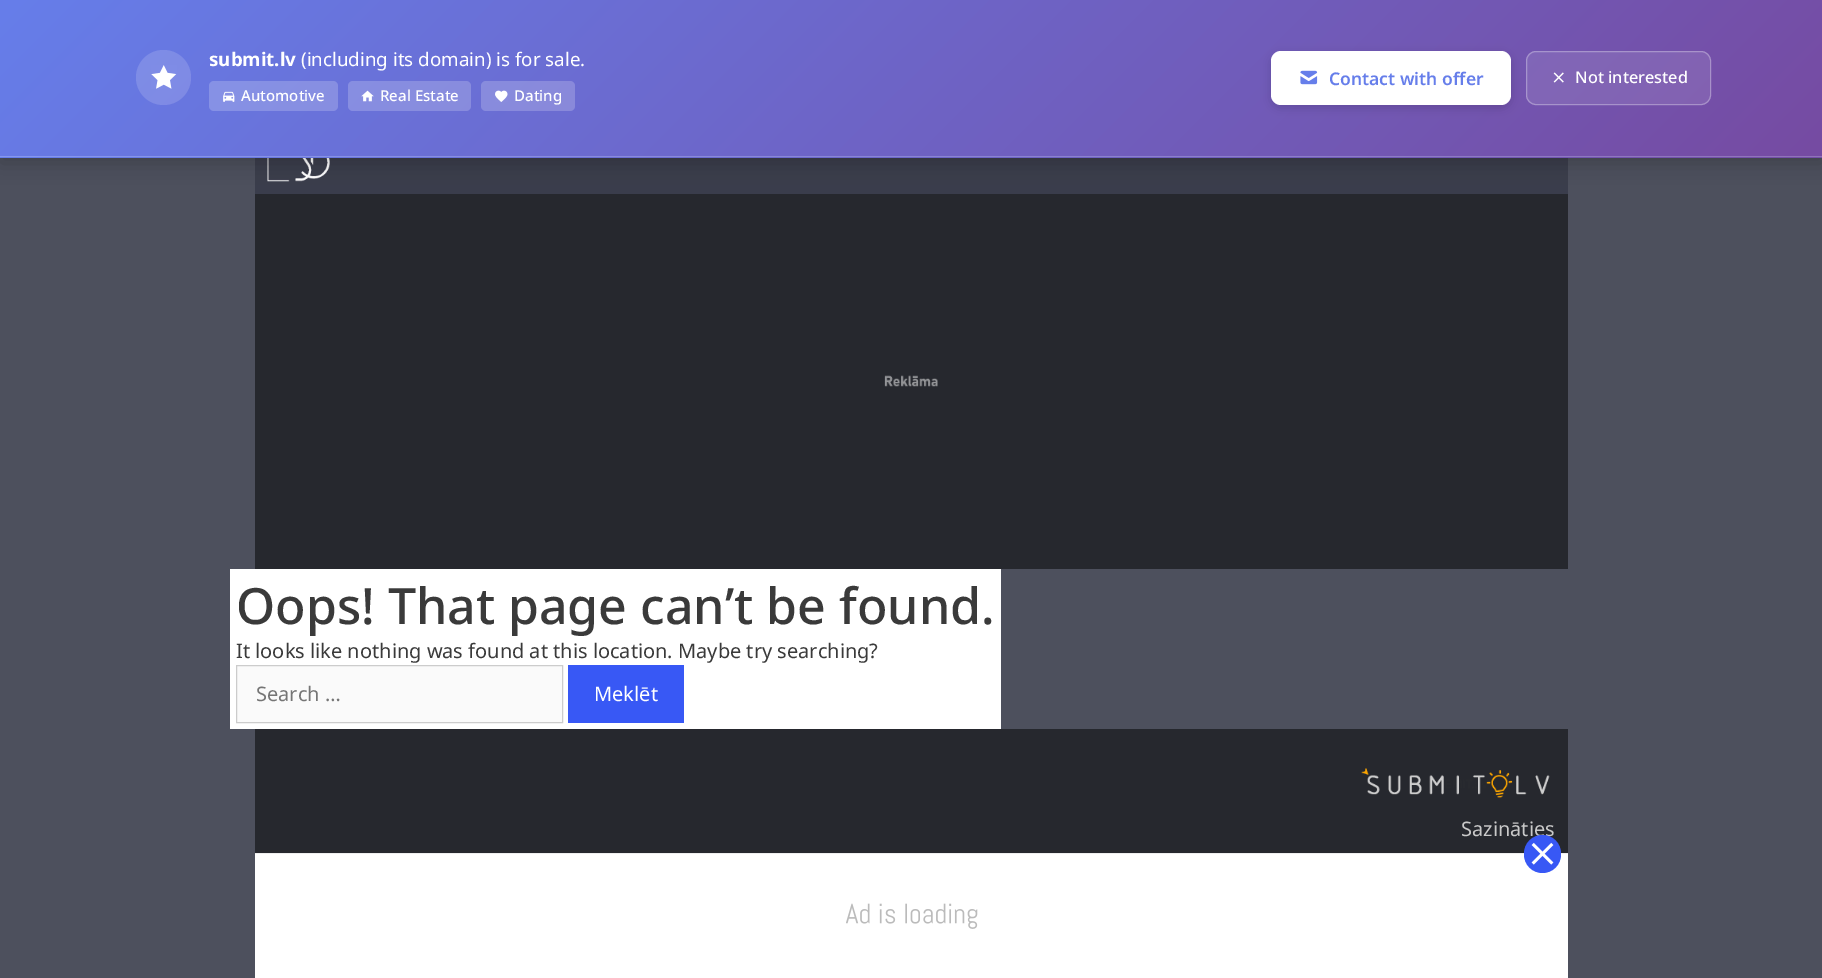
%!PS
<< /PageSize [1822 978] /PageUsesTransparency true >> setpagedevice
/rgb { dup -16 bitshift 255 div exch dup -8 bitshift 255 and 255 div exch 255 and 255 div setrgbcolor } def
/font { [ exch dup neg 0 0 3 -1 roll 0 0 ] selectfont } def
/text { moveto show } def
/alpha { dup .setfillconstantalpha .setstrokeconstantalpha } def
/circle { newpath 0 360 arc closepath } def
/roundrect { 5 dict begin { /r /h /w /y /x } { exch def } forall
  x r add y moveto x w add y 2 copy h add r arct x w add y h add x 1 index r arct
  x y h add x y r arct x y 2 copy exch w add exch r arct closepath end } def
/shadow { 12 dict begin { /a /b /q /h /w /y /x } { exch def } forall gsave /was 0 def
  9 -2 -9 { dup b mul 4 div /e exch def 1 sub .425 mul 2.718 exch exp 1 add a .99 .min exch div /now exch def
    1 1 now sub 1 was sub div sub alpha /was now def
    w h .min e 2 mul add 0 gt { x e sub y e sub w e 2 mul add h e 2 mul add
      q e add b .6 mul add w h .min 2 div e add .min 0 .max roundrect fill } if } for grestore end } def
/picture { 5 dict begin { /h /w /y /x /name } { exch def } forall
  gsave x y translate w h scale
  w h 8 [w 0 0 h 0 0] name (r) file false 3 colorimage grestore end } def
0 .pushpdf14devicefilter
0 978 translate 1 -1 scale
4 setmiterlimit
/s1 { /NotoSans-Bold 18.75 font 16#FFFFFF rgb } def
/s2 { /NotoSans-Regular 18.75 font 16#FFFFFF rgb } def
/s3 { /NotoSans-Medium 15 font 16#FFFFFF rgb } def
/s4 { /NotoSans-SemiBold 17.5 font 16#667EEA rgb } def
/s5 { /NotoSans-Medium 16.25 font 16#FFFFFF rgb } def
/s6 { /NotoSans-Medium 50 font 16#3A3A3A rgb } def
/s7 { /NotoSans-Regular 20 font 16#3A3A3A rgb } def
/s8 { /NotoSans-Regular 20 font 16#757575 rgb } def
/s9 { /NotoSans-Regular 20 font 16#FFFFFF rgb } def
/s10 { /NotoSans-Regular 20 font 16#C9C9C9 rgb } def
16#4D505D rgb
0 0 1822 978 rectfill
16#3A3D4C rgb
255 158 1313 36 rectfill
(pic7.raw) 267 158 63 24 picture
16#000000 rgb
0 5 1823 158 0 10 0.2 shadow
gsave 0 0 moveto 1822 0 lineto 1822 156 lineto 0 156 lineto closepath clip newpath
<< /ShadingType 2 /ColorSpace /DeviceRGB /Coords [417 -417 1406 573] /Extend [true true] /Function << /FunctionType 2 /Domain [0 1] /C0 [0.4 0.494 0.918] /C1 [0.463 0.294 0.635] /N 1 >> >> shfill grestore
gsave 0 156 moveto 1822 156 lineto 1822 158 lineto 0 158 lineto closepath clip newpath
<< /ShadingType 2 /ColorSpace /DeviceRGB /Coords [417 -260 1406 729] /Extend [true true] /Function << /FunctionType 2 /Domain [0 1] /C0 [0.4 0.494 0.918] /C1 [0.463 0.294 0.635] /N 1 >> >> shfill grestore
0.2 alpha
16#FFFFFF rgb
0 156 1822 1 rectfill
0.15 alpha
163.5 77.5 27.5 circle fill
1 alpha
(pic1.raw) 151 65 26 24 picture
s1
(submit.lv) 209 66 text
s2
(\(including its domain\) is for sale.) 301 66 text
0.2 alpha
209 81 129 30 5 roundrect fill
1 alpha
(pic2.raw) 223 91 12 11 picture
s3
(Automotive) 241 101 text
0.2 alpha
348 81 123 30 5 roundrect fill
1 alpha
(pic3.raw) 361 90 13 12 picture
(Real Estate) 380 101 text
0.2 alpha
481 81 94 30 5 roundrect fill
1 alpha
(pic4.raw) 495 90 13 12 picture
(Dating) 514 101 text
16#000000 rgb
1271 54 240 54 10 5 0.15 shadow
16#FFFFFF rgb
1271 51 240 54 10 roundrect fill
(pic5.raw) 1300 70 18 15 picture
s4
(Contact with offer) 1329 85 text
0.1 alpha
16#FFFFFF rgb
1526 51 185 54 10 roundrect fill
0.3 alpha
1526.5 51.5 184 53 9.5 roundrect stroke
1 alpha
(pic6.raw) 1553 72 11 11 picture
s5
(Not interested) 1575 83 text
16#26282E rgb
255 194 1313 375 rectfill
(pic8.raw) 884 375 54 12 picture
16#FFFFFF rgb
230 569 771 160 rectfill
s6
(Oops! That page can’t be found.) 236 624 text
s7
(It looks like nothing was found at this location. Maybe try searching?) 236 658 text
16#FAFAFA rgb
236.5 665.5 moveto 562.5 665.5 lineto 562.5 722.5 lineto 236.5 722.5 lineto closepath gsave fill grestore
16#CCCCCC rgb
stroke
s8
(Search …) 256 701 text
16#3858F5 rgb
568 665 116 58 rectfill
s9
(Meklēt) 594 701 text
16#26282E rgb
255 729 1313 124 rectfill
(pic9.raw) 1361 768 189 30 picture
s10
(Sazināties) 1461 836 text
16#FFFFFF rgb
255 854 1313 124 rectfill
(pic10.raw) 846 903 132 26 picture
16#EEEEEE rgb
255 853 1313 1 rectfill
16#3858F5 rgb
1524 835 37 38 18.5 roundrect fill
(pic11.raw) 1531 842 23 23 picture
.poppdf14devicefilter showpage
